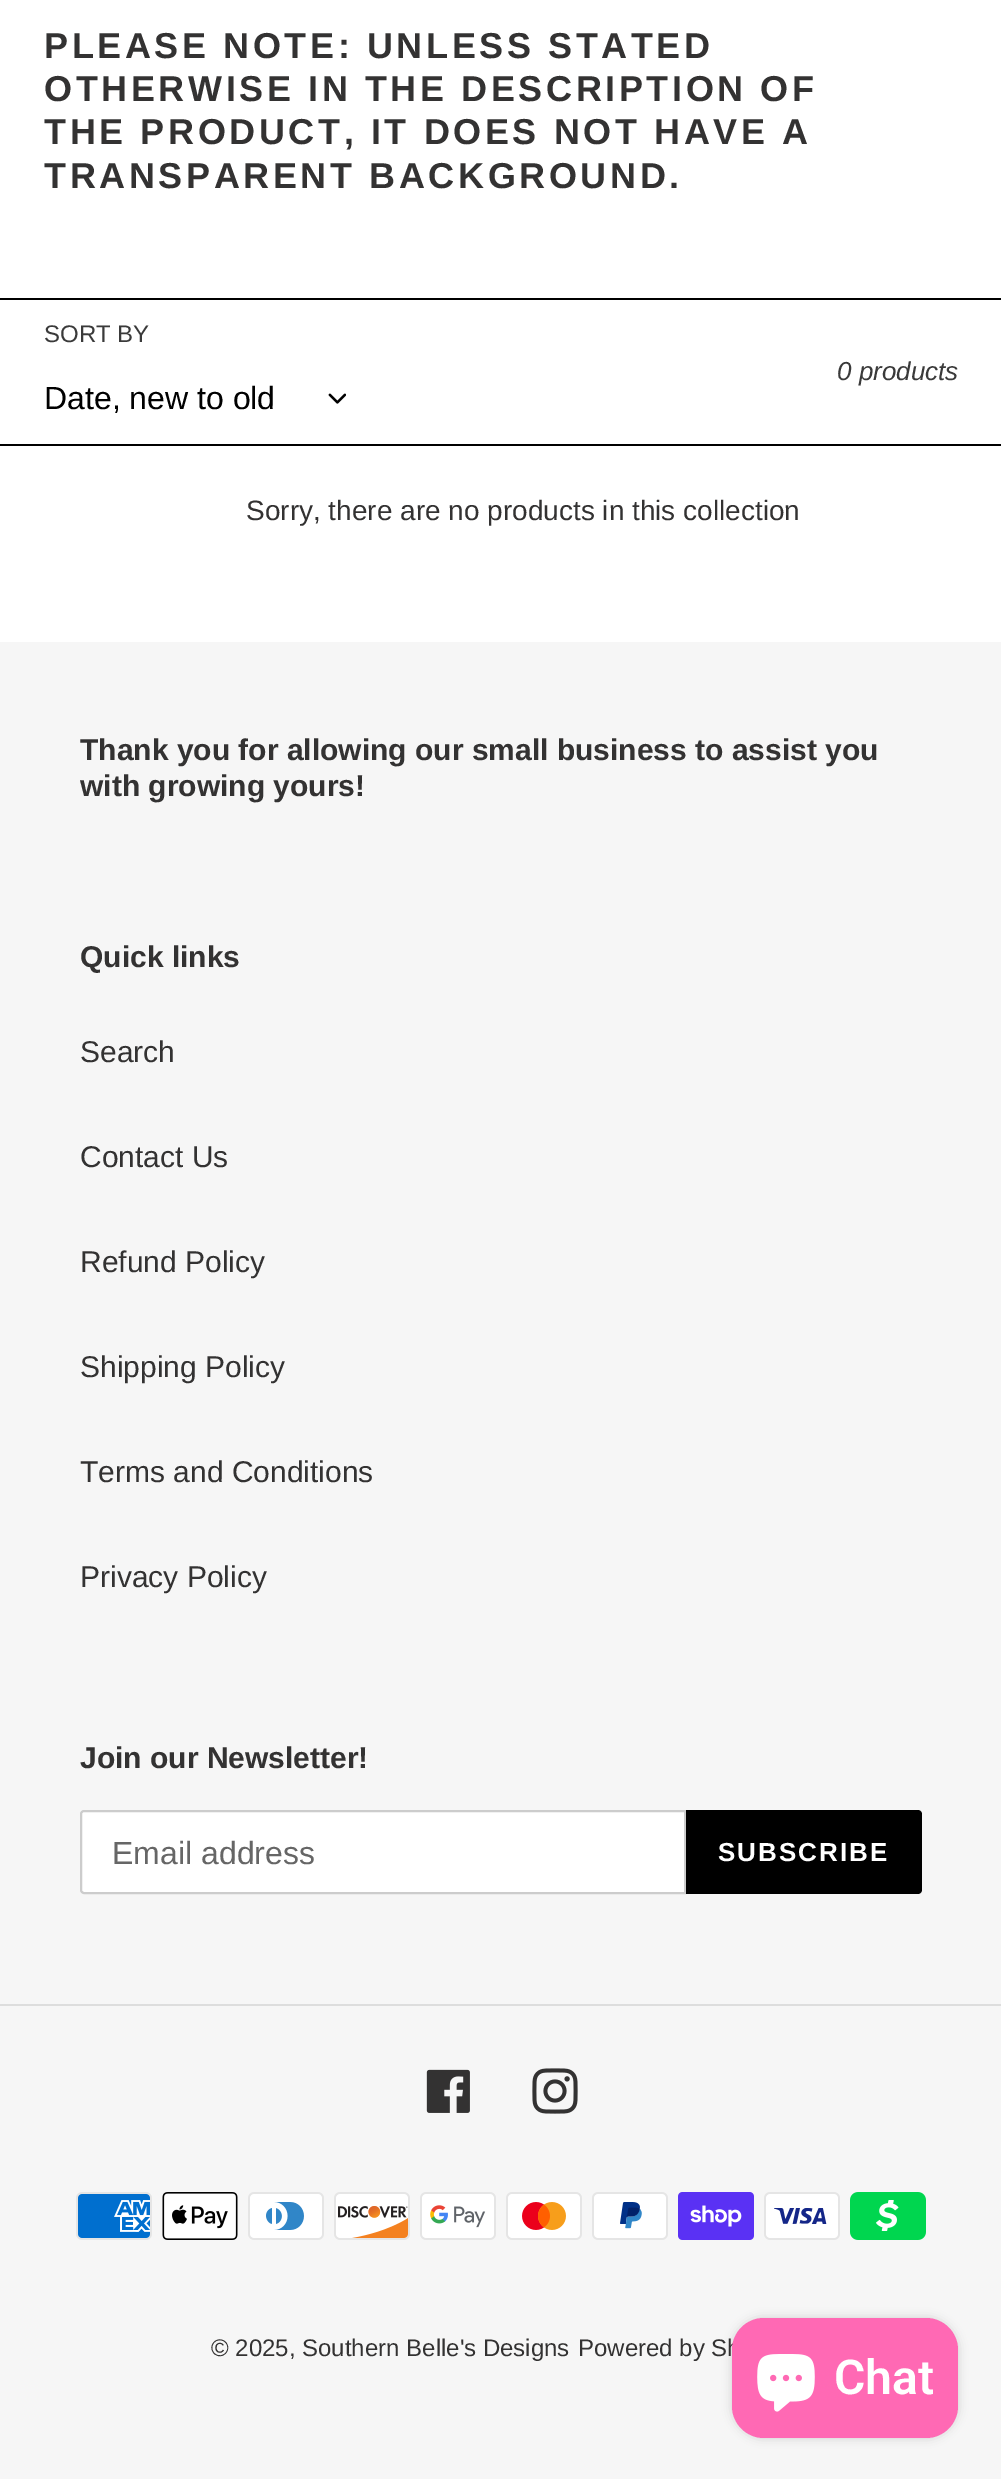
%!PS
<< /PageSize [1001 2479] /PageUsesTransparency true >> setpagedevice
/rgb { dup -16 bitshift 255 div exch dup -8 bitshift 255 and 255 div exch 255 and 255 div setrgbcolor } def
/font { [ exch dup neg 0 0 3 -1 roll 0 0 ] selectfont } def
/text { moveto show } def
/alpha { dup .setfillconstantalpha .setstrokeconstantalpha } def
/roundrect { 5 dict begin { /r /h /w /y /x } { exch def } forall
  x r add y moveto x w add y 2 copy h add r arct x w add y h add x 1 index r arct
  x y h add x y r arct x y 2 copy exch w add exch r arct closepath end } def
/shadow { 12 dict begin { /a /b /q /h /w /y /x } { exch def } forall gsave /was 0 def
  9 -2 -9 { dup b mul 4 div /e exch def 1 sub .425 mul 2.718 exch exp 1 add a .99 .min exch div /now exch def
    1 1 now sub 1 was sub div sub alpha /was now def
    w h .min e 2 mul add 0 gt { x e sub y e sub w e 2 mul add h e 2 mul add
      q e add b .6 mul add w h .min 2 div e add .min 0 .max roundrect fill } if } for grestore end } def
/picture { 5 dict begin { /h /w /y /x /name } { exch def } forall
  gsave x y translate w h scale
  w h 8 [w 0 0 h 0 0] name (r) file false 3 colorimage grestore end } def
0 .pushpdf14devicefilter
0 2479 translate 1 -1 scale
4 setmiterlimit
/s1 { /LiberationSans-Regular 24 font 16#3A3A3A rgb } def
/s2 { /LiberationSans-Regular 32 font 16#000000 rgb } def
/s3 { /LiberationSans-Italic 26 font 16#3A3A3A rgb } def
/s4 { /LiberationSans-Regular 28 font 16#333232 rgb } def
/s5 { /LiberationSans-Bold 30 font 16#333232 rgb } def
/s6 { /LiberationSans-Regular 30 font 16#333232 rgb } def
/s7 { /LiberationSans-Regular 32 font 16#666666 rgb } def
/s8 { /LiberationSans-Regular 24 font 16#333232 rgb } def
/s9 { /Roboto-SemiBold 48 font 16#FFFFFF rgb } def
16#FFFFFF rgb
0 0 1001 2479 rectfill
/LiberationSans-Bold 36 font
16#333232 rgb
44 58 moveto 3.6 0 (PLEASE NOTE: UNLESS STATED) ashow
44 101 moveto 3.6 0 (OTHERWISE IN THE DESCRIPTION OF) ashow
44 144 moveto 3.6 0 (THE PRODUCT, IT DOES NOT HAVE A) ashow
44 188 moveto 3.6 0 (TRANSPARENT BACKGROUND.) ashow
16#000000 rgb
0 298 1001 2 rectfill
0 444 1001 2 rectfill
s1
(SORT BY) 44 342 text
s2
(Date, new to old) 44 409 text
(pic1.raw) 328 393 18 11 picture
s3
(0 products) 837 380 text
s4
(Sorry, there are no products in this collection) 246 520 text
16#F6F6F6 rgb
0 642 1001 1837 rectfill
s5
(Thank you for allowing our small business to assist you) 80 760 text
(with growing yours!) 80 796 text
(Quick links) 80 967 text
s6
(Search) 80 1062 text
(Contact Us) 80 1167 text
(Refund Policy) 80 1272 text
(Shipping Policy) 80 1377 text
(Terms and Conditions) 80 1482 text
(Privacy Policy) 80 1587 text
s5
(Join our Newsletter!) 80 1768 text
16#FFFFFF rgb
84 1811 moveto 685 1811 lineto 685 1893 lineto 84 1893 lineto 82.5 1893 81 1891.5 81 1890 curveto 81 1814 lineto 81 1812.5 82.5 1811 84 1811 curveto closepath gsave fill grestore
16#CCCCCC rgb
2 setlinewidth
stroke
s7
(Email address) 112 1864 text
16#000000 rgb
686 1810 moveto 918 1810 lineto 920 1810 922 1812 922 1814 curveto 922 1890 lineto 922 1892 920 1894 918 1894 curveto 686 1894 lineto closepath fill
/LiberationSans-Bold 26 font
16#FFFFFF rgb
718 1861 moveto 2 0 (SUBSCRIBE) ashow
16#DDDDDD rgb
0 2004 1001 2 rectfill
(pic2.raw) 426 2069 44 44 picture
(pic3.raw) 532 2068 46 46 picture
(pic4.raw) 76 2192 76 48 picture
(pic5.raw) 162 2192 76 48 picture
(pic6.raw) 248 2192 76 48 picture
(pic7.raw) 334 2192 76 48 picture
(pic8.raw) 420 2192 76 48 picture
(pic9.raw) 506 2192 76 48 picture
(pic10.raw) 592 2192 76 48 picture
(pic11.raw) 678 2192 76 48 picture
(pic12.raw) 764 2192 76 48 picture
(pic13.raw) 850 2192 76 48 picture
s8
(© 2025, Southern Belle's Designs) 211 2356 text
(Powered by Sh) 578 2356 text
16#000000 rgb
732 2318 226 120 32 5 0.15 shadow
16#FF69B4 rgb
732 2318 226 120 32 roundrect fill
(pic14.raw) 757 2354 58 58 picture
s9
(Chat) 834 2394 text
.poppdf14devicefilter showpage
